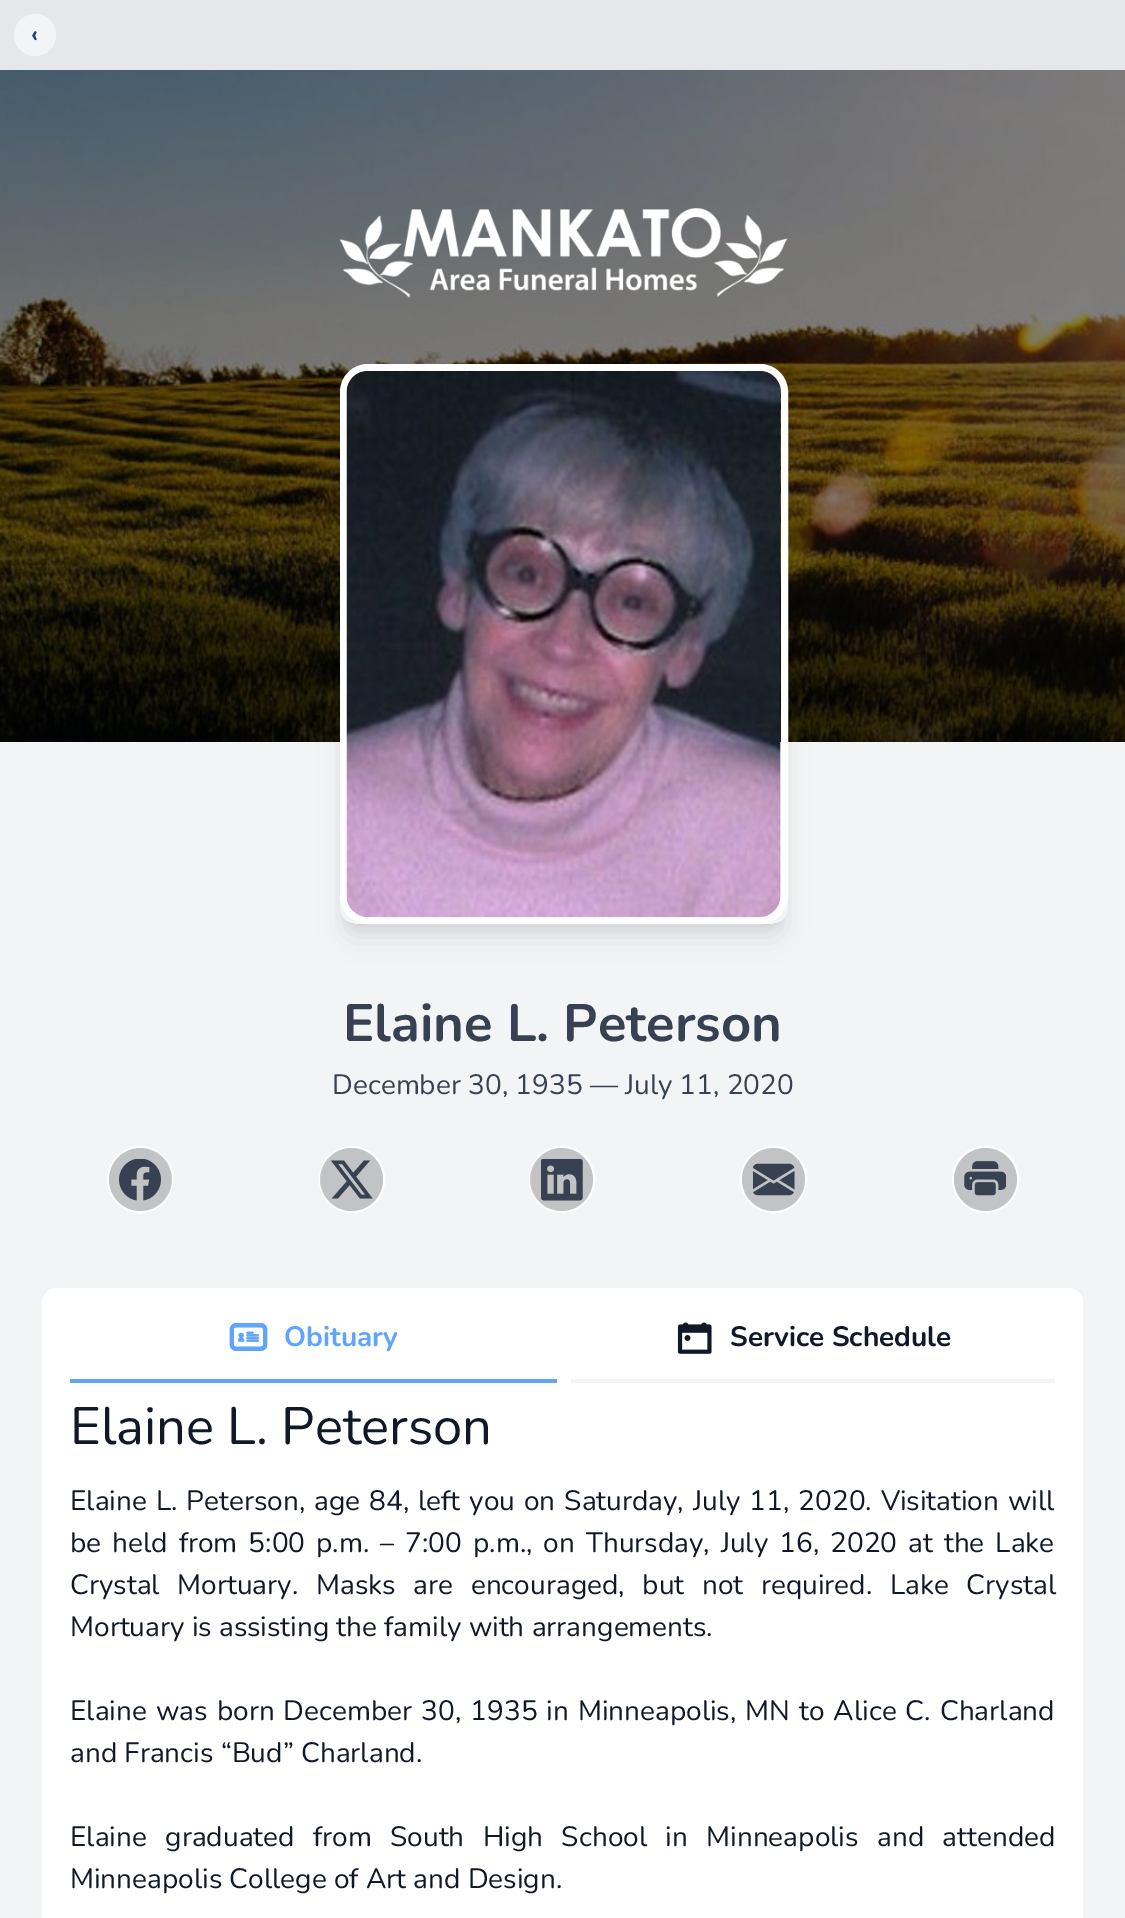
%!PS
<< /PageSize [1125 1918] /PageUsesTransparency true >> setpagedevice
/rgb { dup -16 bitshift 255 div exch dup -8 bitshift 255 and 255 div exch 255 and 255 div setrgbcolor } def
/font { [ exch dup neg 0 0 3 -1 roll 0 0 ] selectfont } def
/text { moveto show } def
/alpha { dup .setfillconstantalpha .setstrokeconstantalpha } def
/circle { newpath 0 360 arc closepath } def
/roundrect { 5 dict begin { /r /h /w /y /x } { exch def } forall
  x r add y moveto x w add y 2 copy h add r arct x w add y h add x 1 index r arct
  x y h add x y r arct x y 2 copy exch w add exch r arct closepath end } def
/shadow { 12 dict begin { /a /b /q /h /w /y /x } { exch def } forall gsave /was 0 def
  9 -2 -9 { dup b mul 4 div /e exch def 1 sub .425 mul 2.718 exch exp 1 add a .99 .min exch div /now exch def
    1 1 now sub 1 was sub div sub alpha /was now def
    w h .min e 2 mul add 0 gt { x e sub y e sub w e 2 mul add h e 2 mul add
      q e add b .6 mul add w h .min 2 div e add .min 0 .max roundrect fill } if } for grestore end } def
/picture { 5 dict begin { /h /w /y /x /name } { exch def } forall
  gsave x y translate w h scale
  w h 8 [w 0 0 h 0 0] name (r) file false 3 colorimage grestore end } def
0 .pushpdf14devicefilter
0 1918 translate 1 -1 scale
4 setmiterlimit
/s1 { /Nunito-Bold 24 font 16#1E3A8A rgb } def
/s2 { /Nunito-Bold 52.5 font 16#374151 rgb } def
/s3 { /Nunito-Regular 28 font 16#374151 rgb } def
/s4 { /Nunito-Bold 28 font 16#60A5FA rgb } def
/s5 { /Nunito-Bold 28 font 16#111827 rgb } def
/s6 { /Nunito-Regular 52.5 font 16#111827 rgb } def
/s7 { /Nunito-Regular 28 font 16#111827 rgb } def
16#F3F4F6 rgb
0 0 1125 1918 rectfill
16#E5E7EB rgb
0 0 1125 70 rectfill
16#F3F4F6 rgb
35 35 21 circle fill
s1
(‹) 31 42 text
(pic1.raw) 0 70 1125 672 picture
(pic2.raw) 339 208 449 90 picture
gsave
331 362 moveto 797 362 lineto 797 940 lineto 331 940 lineto closepath 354 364 moveto 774 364 lineto 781.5 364 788 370.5 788 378 curveto 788 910 lineto 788 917.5 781.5 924 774 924 curveto 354 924 lineto 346.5 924 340 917.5 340 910 curveto 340 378 lineto 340 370.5 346.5 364 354 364 curveto closepath eoclip newpath
16#000000 rgb
347 378 434 546 7 5 0.1 shadow
grestore
gsave
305 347 moveto 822 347 lineto 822 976 lineto 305 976 lineto closepath 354 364 moveto 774 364 lineto 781.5 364 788 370.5 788 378 curveto 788 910 lineto 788 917.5 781.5 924 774 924 curveto 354 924 lineto 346.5 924 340 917.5 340 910 curveto 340 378 lineto 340 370.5 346.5 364 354 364 curveto closepath eoclip newpath
16#000000 rgb
345 387 437 549 9 13 0.1 shadow
grestore
16#FFFFFF rgb
7 setlinewidth
343.5 367.5 441 553 24.5 roundrect stroke
(pic3.raw) 346 371 435 546 picture
s2
(Elaine L. Peterson) 343 1041 text
s3
(December 30, 1935 — July 11, 2020) 332 1094 text
16#FFFFFF rgb
2 setlinewidth
108 1147 64 65 32 roundrect stroke
0.2 alpha
16#000000 rgb
140.5 1179.5 31.5 circle fill
1 alpha
(pic4.raw) 119 1159 42 42 picture
16#FFFFFF rgb
320 1147 64 65 32 roundrect stroke
0.2 alpha
16#000000 rgb
351.5 1179.5 31.5 circle fill
1 alpha
(pic5.raw) 331 1160 42 39 picture
16#FFFFFF rgb
530 1147 64 65 32 roundrect stroke
0.2 alpha
16#000000 rgb
561.5 1179.5 31.5 circle fill
1 alpha
(pic6.raw) 541 1159 42 42 picture
16#FFFFFF rgb
773.5 1179.5 32.5 circle stroke
0.2 alpha
16#000000 rgb
773.5 1179.5 31.5 circle fill
1 alpha
(pic7.raw) 753 1163 42 33 picture
16#FFFFFF rgb
985.5 1179.5 32.5 circle stroke
0.2 alpha
16#000000 rgb
985.5 1179.5 31.5 circle fill
1 alpha
(pic8.raw) 964 1161 42 35 picture
gsave
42 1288 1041 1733 rectclip
42 1290 1041 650 14 2.5 0.1 shadow
grestore
16#FFFFFF rgb
42 1288 1041 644 14 roundrect fill
16#60A5FA rgb
70 1379 487 4 rectfill
(pic9.raw) 229 1323 39 28 picture
s4
(Obituary) 284 1346 text
16#F3F4F6 rgb
571 1379 484 4 rectfill
(pic10.raw) 677 1322 35 32 picture
s5
(Service Schedule) 730 1346 text
s6
(Elaine L. Peterson) 70 1444 text
/Nunito-Regular 28 font
70 1510 moveto 1.75 0 32 (Elaine L. Peterson, age 84, left you on Saturday, July 11, 2020. Visitation will) widthshow
70 1552 moveto 3.75 0 32 (be held from 5:00 p.m. – 7:00 p.m., on Thursday, July 16, 2020 at the Lake) widthshow
70 1594 moveto 10.5 0 32 (Crystal Mortuary. Masks are encouraged, but not required. Lake Crystal) widthshow
(Mortuary is assisting the family with arrangements.) 70 1636 text
70 1720 moveto 1.8 0 32 (Elaine was born December 30, 1935 in Minneapolis, MN to Alice C. Charland) widthshow
(and Francis “Bud” Charland.) 70 1762 text
70 1846 moveto 11.25 0 32 (Elaine graduated from South High School in Minneapolis and attended) widthshow
(Minneapolis College of Art and Design.) 70 1888 text
.poppdf14devicefilter showpage
